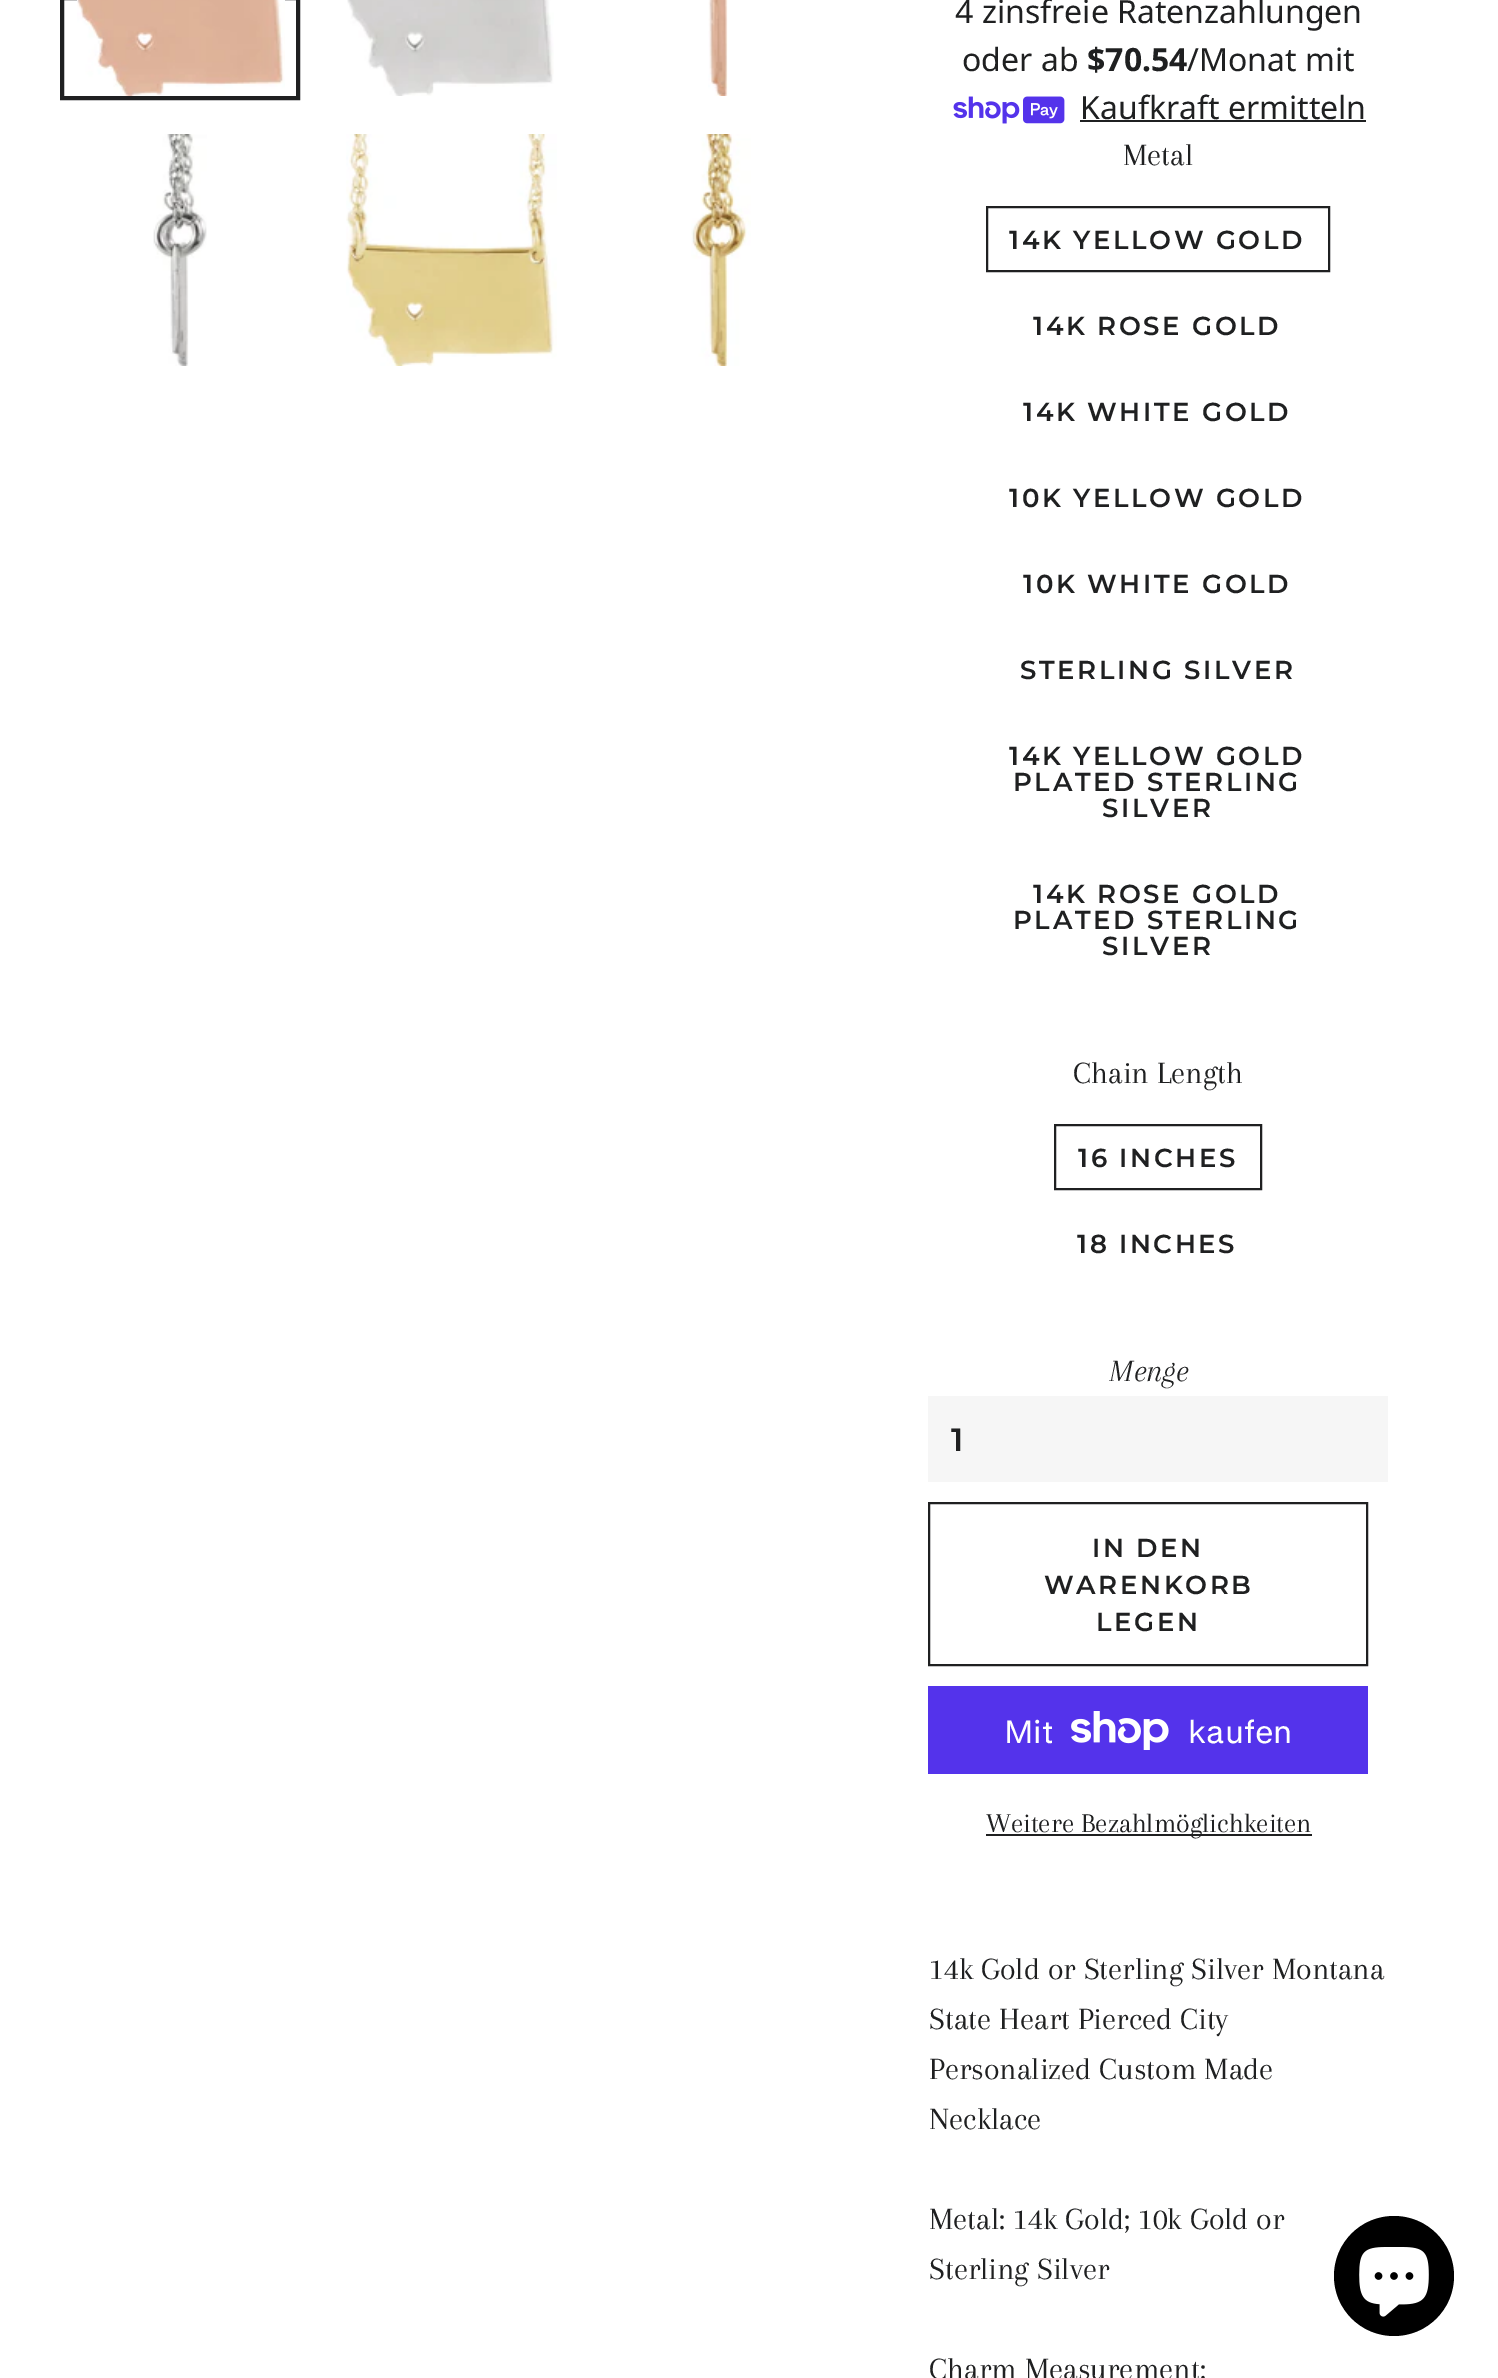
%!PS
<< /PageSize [1498 2378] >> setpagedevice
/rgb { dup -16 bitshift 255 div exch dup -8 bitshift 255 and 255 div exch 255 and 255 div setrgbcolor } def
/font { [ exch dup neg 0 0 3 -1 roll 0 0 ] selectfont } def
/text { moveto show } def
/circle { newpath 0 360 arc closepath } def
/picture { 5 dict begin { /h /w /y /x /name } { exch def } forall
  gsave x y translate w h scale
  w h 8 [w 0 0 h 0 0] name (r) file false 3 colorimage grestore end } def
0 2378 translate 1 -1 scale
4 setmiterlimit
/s1 { /NotoSans-Regular 32 font 16#1F2021 rgb } def
/s2 { /NotoSans-Bold 32 font 16#1F2021 rgb } def
/s3 { /Arapey-Regular 32 font 16#1F2021 rgb } def
/s4 { /Arapey-Italic 32 font 16#1F2021 rgb } def
/s5 { /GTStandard-Regular 32 font 16#FFFFFF rgb } def
/s6 { /Arapey-Regular 28 font 16#1F2021 rgb } def
16#FFFFFF rgb
0 0 1498 2378 rectfill
16#1F2021 rgb
4 setlinewidth
62 -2 236 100 rectstroke
(pic1.raw) 77 0 208 96 picture
(pic2.raw) 347 0 207 96 picture
(pic3.raw) 708 0 20 96 picture
(pic4.raw) 153 134 54 232 picture
(pic5.raw) 346 134 211 232 picture
(pic6.raw) 691 134 60 232 picture
s1
(4 zinsfreie Ratenzahlungen) 955 23 text
(oder ab) 962 71 text
s2
($70.54) 1087 71 text
s1
(/Monat mit) 1187 71 text
(pic7.raw) 953 96 112 28 picture
(Kaufkraft ermitteln) 1080 119 text
1080 120 286 2 rectfill
s3
(Metal) 1123 165 text
2 setlinewidth
987 207 342 64 rectstroke
/Montserrat-SemiBold 26 font
1009 249 moveto 2.6 0 (14K YELLOW GOLD) ashow
1033 335 moveto 2.6 0 (14K ROSE GOLD) ashow
1023 421 moveto 2.6 0 (14K WHITE GOLD) ashow
1009 507 moveto 2.6 0 (10K YELLOW GOLD) ashow
1023 593 moveto 2.6 0 (10K WHITE GOLD) ashow
1020 679 moveto 2.6 0 (STERLING SILVER) ashow
1009 765 moveto 2.6 0 (14K YELLOW GOLD) ashow
1013 791 moveto 2.6 0 (PLATED STERLING) ashow
1102 817 moveto 2.6 0 (SILVER) ashow
1033 903 moveto 2.6 0 (14K ROSE GOLD) ashow
1013 929 moveto 2.6 0 (PLATED STERLING) ashow
1102 955 moveto 2.6 0 (SILVER) ashow
s3
(Chain Length) 1073 1083 text
1055 1125 206 64 rectstroke
/Montserrat-SemiBold 26 font
1078 1167 moveto 2.6 0 (16 INCHES) ashow
1077 1253 moveto 2.6 0 (18 INCHES) ashow
s4
(Menge) 1109 1381 text
16#F6F6F6 rgb
928 1396 460 86 rectfill
/Montserrat-SemiBold 32 font
16#1F2021 rgb
951 1451 moveto 3 0 (1) ashow
929 1503 438 162 rectstroke
/Montserrat-SemiBold 26 font
1092 1557 moveto 2.6 0 (IN DEN) ashow
1044 1594 moveto 2.6 0 (WARENKORB) ashow
1096 1631 moveto 2.6 0 (LEGEN) ashow
16#5433EB rgb
928 1686 440 88 rectfill
s5
(Mit) 1004 1743 text
(pic8.raw) 1071 1711 98 39 picture
(kaufen) 1188 1743 text
16#1F2021 rgb
986 1834 326 2 rectfill
s6
(Weitere Bezahlmöglichkeiten) 986 1832 text
s3
(14k Gold or Sterling Silver Montana) 929 1979 text
(State Heart Pierced City) 929 2029 text
(Personalized Custom Made) 929 2079 text
(Necklace) 929 2129 text
(Metal: 14k Gold; 10k Gold or) 929 2229 text
(Sterling Silver) 929 2279 text
(Charm Measurement:) 929 2379 text
16#000000 rgb
1394 2276 60 circle fill
(pic9.raw) 1359 2247 70 70 picture
showpage
